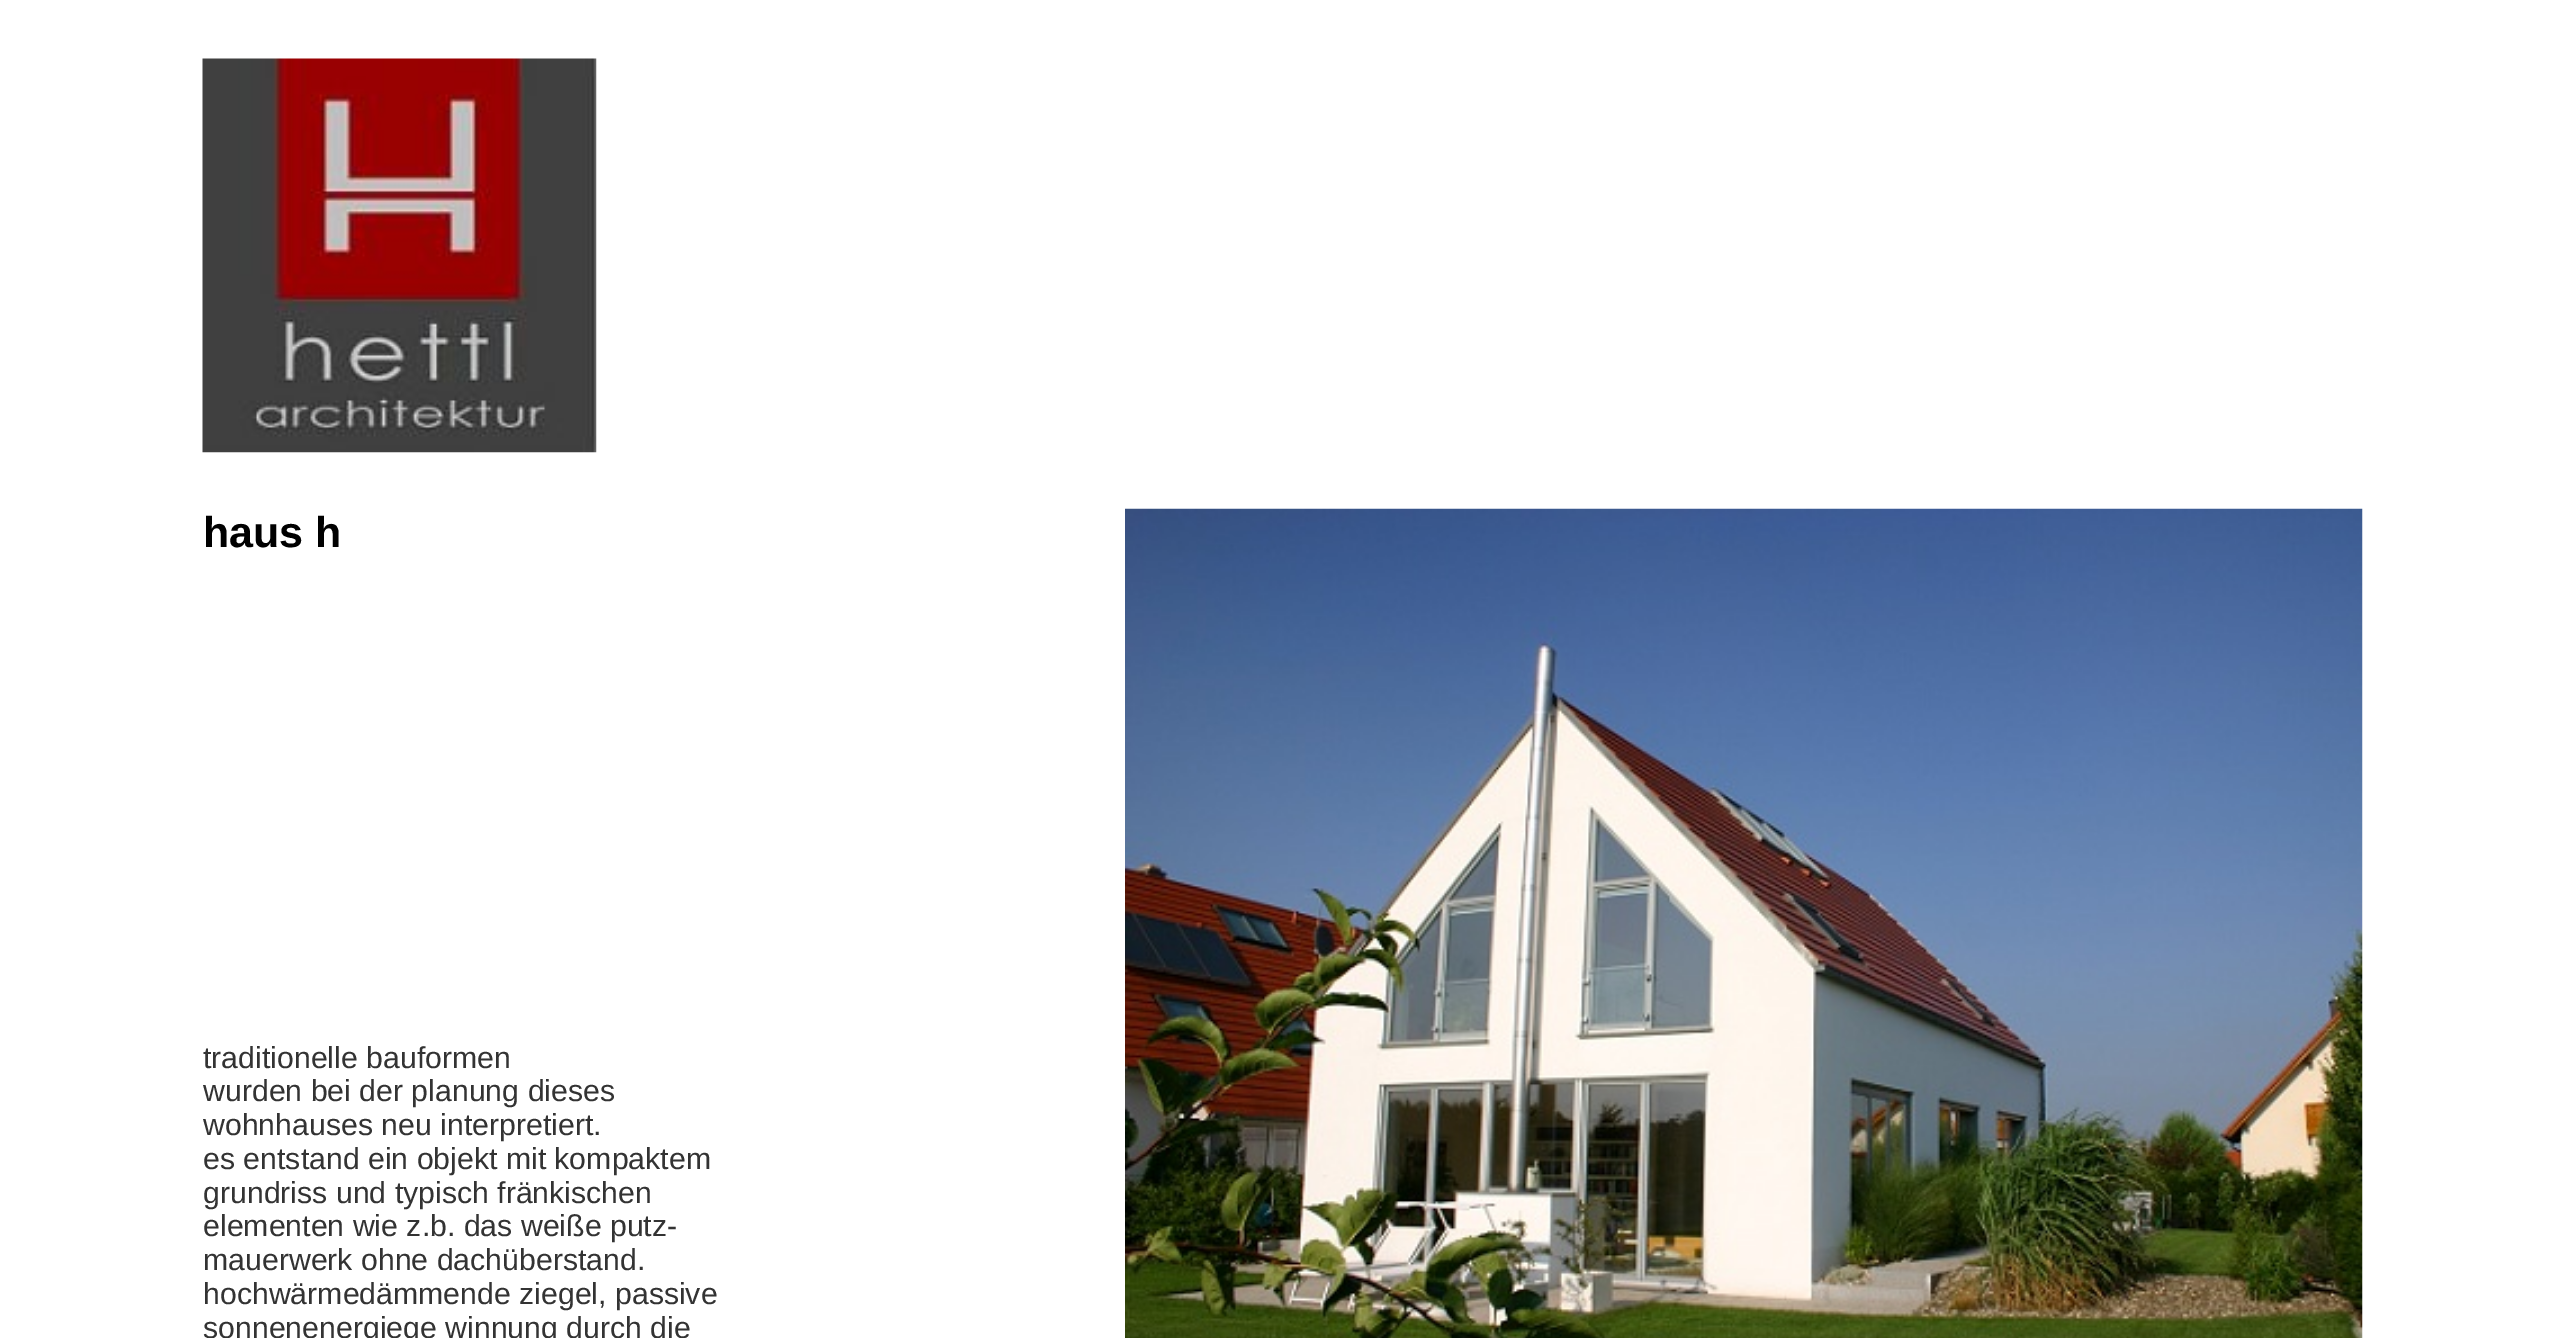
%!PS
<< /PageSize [2564 1338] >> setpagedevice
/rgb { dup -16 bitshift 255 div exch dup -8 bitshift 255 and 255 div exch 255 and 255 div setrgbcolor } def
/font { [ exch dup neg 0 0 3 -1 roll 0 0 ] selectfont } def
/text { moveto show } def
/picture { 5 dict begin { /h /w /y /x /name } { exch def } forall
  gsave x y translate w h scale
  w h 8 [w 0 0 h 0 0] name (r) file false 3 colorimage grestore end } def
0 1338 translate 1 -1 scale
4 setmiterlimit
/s1 { /LiberationSans-Bold 43 font 16#000000 rgb } def
/s2 { /LiberationSans-Regular 30.25 font 16#333333 rgb } def
16#FFFFFF rgb
0 0 2564 1338 rectfill
(pic1.raw) 202 58 395 395 picture
s1
(haus h) 203 547 text
(pic2.raw) 1125 508 1238 830 picture
s2
(traditionelle bauformen) 203 1068 text
(wurden bei der planung dieses) 203 1101 text
(wohnhauses neu interpretiert.) 203 1135 text
(es entstand ein objekt mit kompaktem) 203 1169 text
(grundriss und typisch fränkischen) 203 1203 text
(elementen wie z.b. das weiße putz-) 203 1236 text
(mauerwerk ohne dachüberstand.) 203 1270 text
(hochwärmedämmende ziegel, passive) 203 1304 text
(sonnenenergiege winnung durch die) 203 1338 text
showpage
